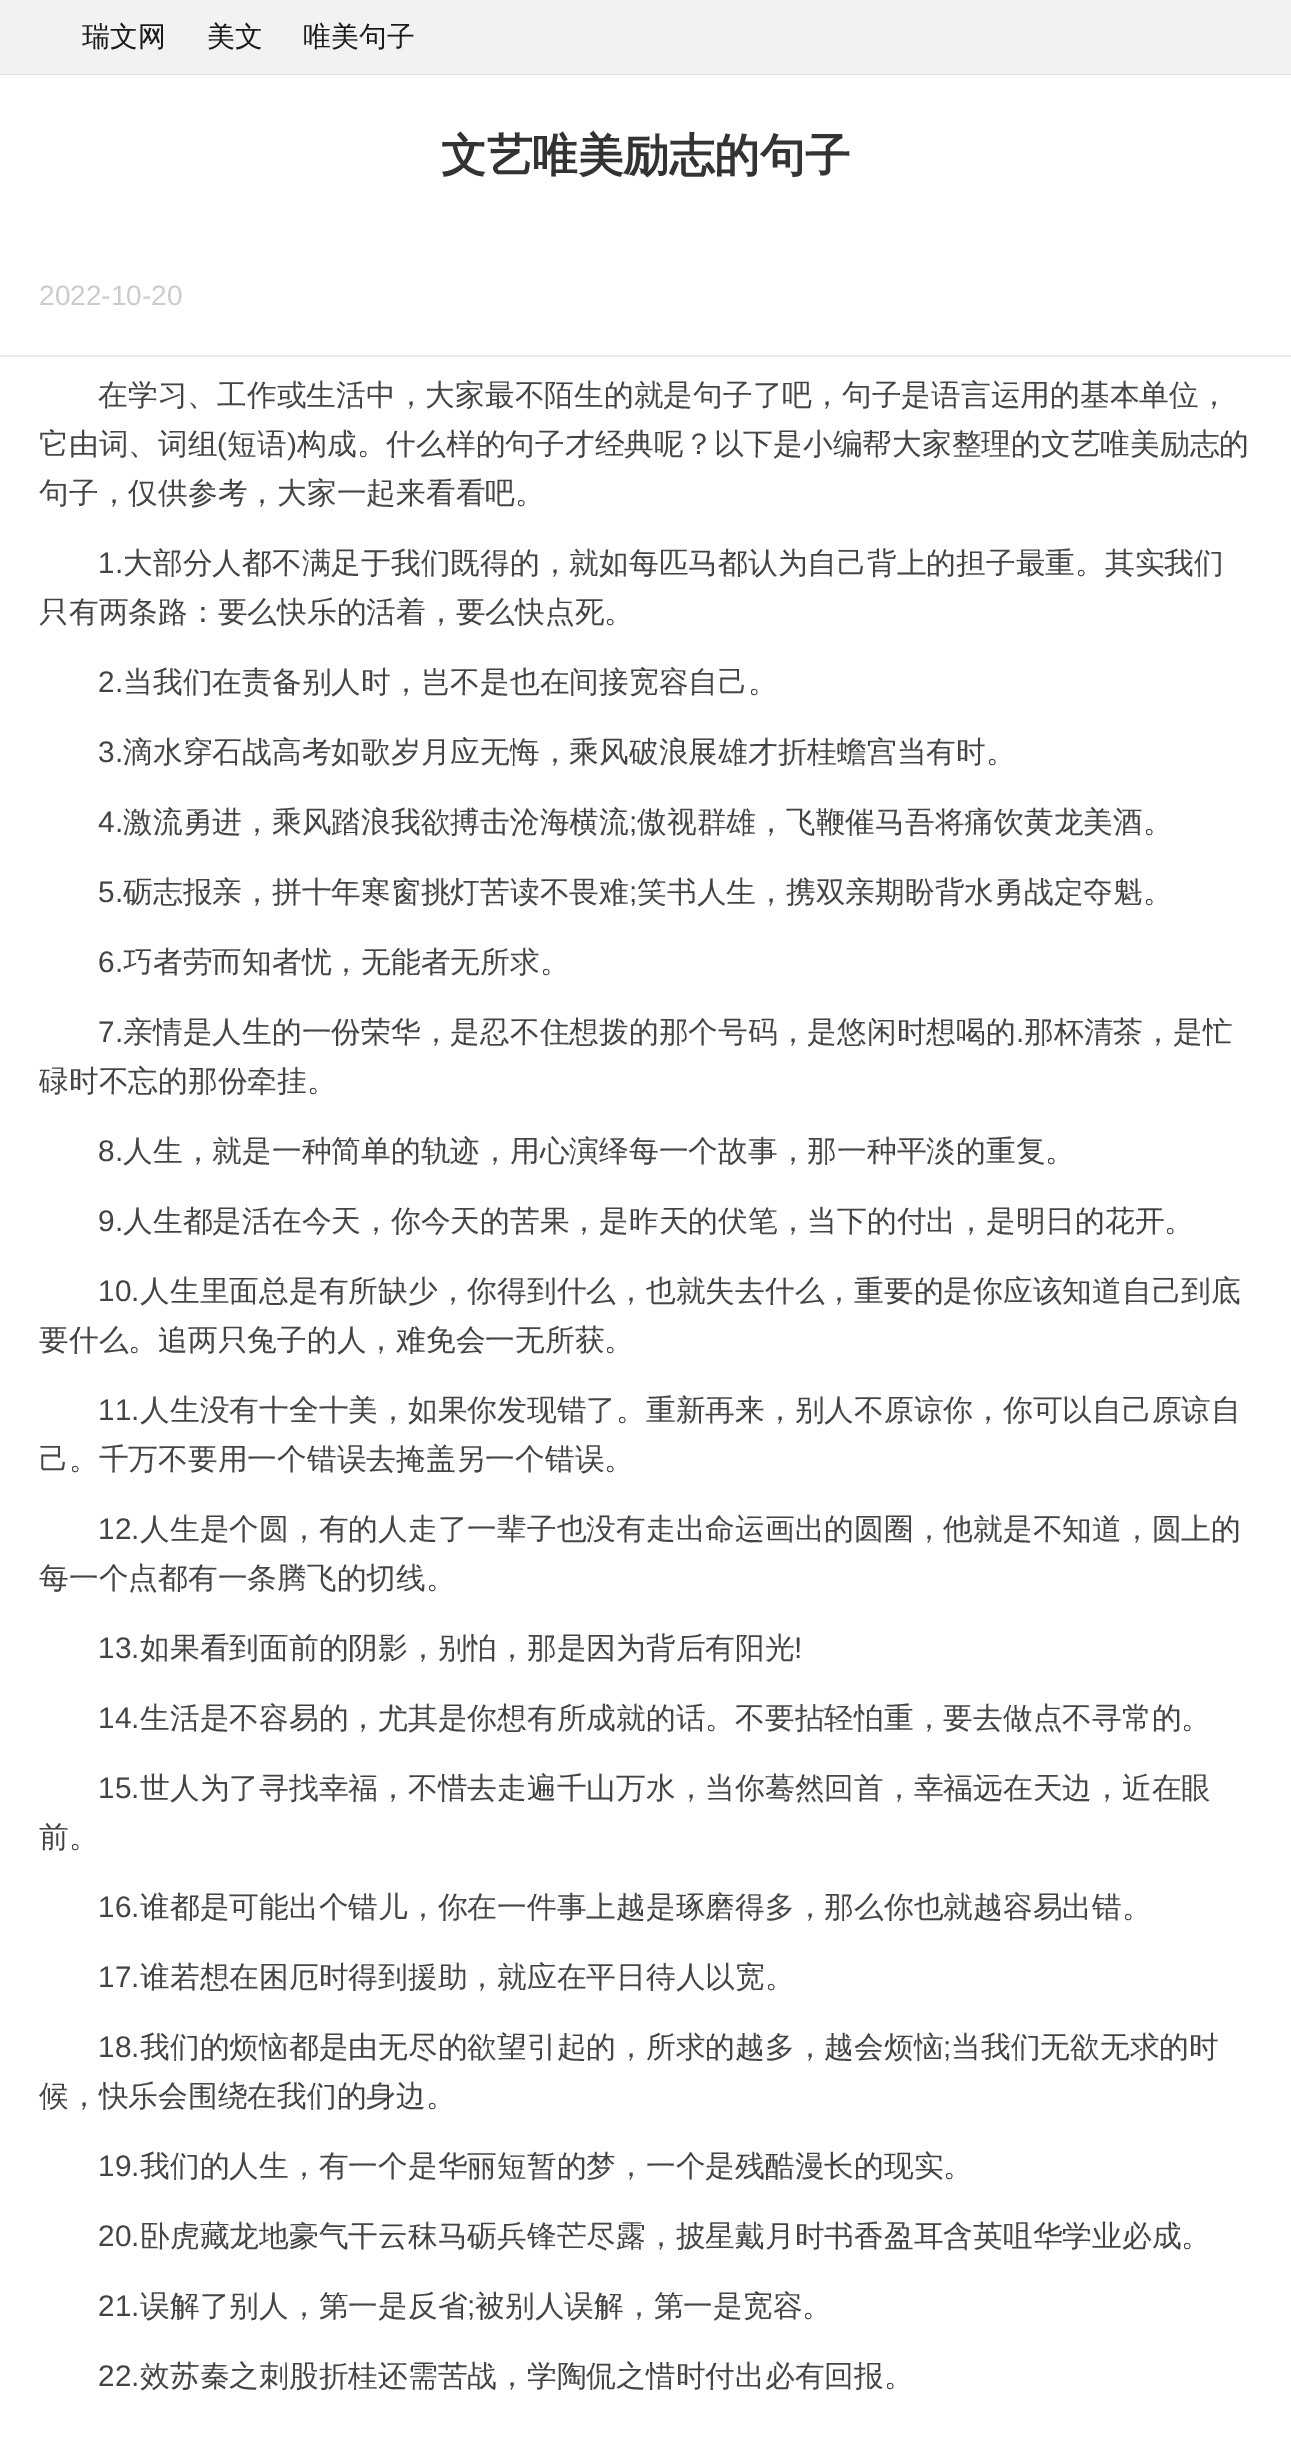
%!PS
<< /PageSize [1291 2441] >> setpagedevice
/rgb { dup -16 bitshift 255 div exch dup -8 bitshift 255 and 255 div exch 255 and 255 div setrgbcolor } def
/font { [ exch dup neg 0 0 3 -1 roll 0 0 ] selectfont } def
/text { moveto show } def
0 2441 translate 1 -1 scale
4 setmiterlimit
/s1 { /WenQuanYiZenHei-Medium 28 font 16#1A1A1A rgb } def
/s2 { /WenQuanYiZenHei-Bold 45.5 font 16#333333 rgb } def
/s3 { /LiberationSans-Regular 28 font 16#CCCCCC rgb } def
/s4 { /WenQuanYiZenHei-Medium 29.75 font 16#444444 rgb } def
/s5 { /LiberationSans-Regular 29.75 font 16#444444 rgb } def
16#F2F2F2 rgb
0 0 1291 2441 rectfill
16#DFDFDF rgb
0 74 1291 1 rectfill
s1
(瑞文网) 82 46 text
(美文) 207 46 text
(唯美句子) 303 46 text
16#FFFFFF rgb
0 75 1291 2366 rectfill
s2
(文艺唯美励志的句子) 441 171 text
16#E8E8E8 rgb
0 355 1291 2 rectfill
s3
(2022-10-20) 39 305 text
s4
(在学习、工作或生活中，大家最不陌生的就是句子了吧，句子是语言运用的基本单位，) 98 405 text
(它由词、词组) 39 454 text
s5
(\() 217 454 text
s4
(短语) 227 454 text
s5
(\)) 287 454 text
s4
(构成。什么样的句子才经典呢？以下是小编帮大家整理的文艺唯美励志的) 297 454 text
(句子，仅供参考，大家一起来看看吧。) 39 503 text
s5
(1.) 98 573 text
s4
(大部分人都不满足于我们既得的，就如每匹马都认为自己背上的担子最重。其实我们) 123 573 text
(只有两条路：要么快乐的活着，要么快点死。) 39 622 text
s5
(2.) 98 692 text
s4
(当我们在责备别人时，岂不是也在间接宽容自己。) 123 692 text
s5
(3.) 98 762 text
s4
(滴水穿石战高考如歌岁月应无悔，乘风破浪展雄才折桂蟾宫当有时。) 123 762 text
s5
(4.) 98 832 text
s4
(激流勇进，乘风踏浪我欲搏击沧海横流) 123 832 text
s5
(;) 629 832 text
s4
(傲视群雄，飞鞭催马吾将痛饮黄龙美酒。) 637 832 text
s5
(5.) 98 902 text
s4
(砺志报亲，拼十年寒窗挑灯苦读不畏难) 123 902 text
s5
(;) 629 902 text
s4
(笑书人生，携双亲期盼背水勇战定夺魁。) 637 902 text
s5
(6.) 98 972 text
s4
(巧者劳而知者忧，无能者无所求。) 123 972 text
s5
(7.) 98 1042 text
s4
(亲情是人生的一份荣华，是忍不住想拨的那个号码，是悠闲时想喝的) 123 1042 text
s5
(.) 1016 1042 text
s4
(那杯清茶，是忙) 1024 1042 text
(碌时不忘的那份牵挂。) 39 1091 text
s5
(8.) 98 1161 text
s4
(人生，就是一种简单的轨迹，用心演绎每一个故事，那一种平淡的重复。) 123 1161 text
s5
(9.) 98 1231 text
s4
(人生都是活在今天，你今天的苦果，是昨天的伏笔，当下的付出，是明日的花开。) 123 1231 text
s5
(10.) 98 1301 text
s4
(人生里面总是有所缺少，你得到什么，也就失去什么，重要的是你应该知道自己到底) 140 1301 text
(要什么。追两只兔子的人，难免会一无所获。) 39 1350 text
s5
(11.) 98 1420 text
s4
(人生没有十全十美，如果你发现错了。重新再来，别人不原谅你，你可以自己原谅自) 140 1420 text
(己。千万不要用一个错误去掩盖另一个错误。) 39 1469 text
s5
(12.) 98 1539 text
s4
(人生是个圆，有的人走了一辈子也没有走出命运画出的圆圈，他就是不知道，圆上的) 140 1539 text
(每一个点都有一条腾飞的切线。) 39 1588 text
s5
(13.) 98 1658 text
s4
(如果看到面前的阴影，别怕，那是因为背后有阳光) 140 1658 text
s5
(!) 794 1658 text
(14.) 98 1728 text
s4
(生活是不容易的，尤其是你想有所成就的话。不要拈轻怕重，要去做点不寻常的。) 140 1728 text
s5
(15.) 98 1798 text
s4
(世人为了寻找幸福，不惜去走遍千山万水，当你蓦然回首，幸福远在天边，近在眼) 140 1798 text
(前。) 39 1847 text
s5
(16.) 98 1917 text
s4
(谁都是可能出个错儿，你在一件事上越是琢磨得多，那么你也就越容易出错。) 140 1917 text
s5
(17.) 98 1987 text
s4
(谁若想在困厄时得到援助，就应在平日待人以宽。) 140 1987 text
s5
(18.) 98 2057 text
s4
(我们的烦恼都是由无尽的欲望引起的，所求的越多，越会烦恼) 140 2057 text
s5
(;) 943 2057 text
s4
(当我们无欲无求的时) 951 2057 text
(候，快乐会围绕在我们的身边。) 39 2106 text
s5
(19.) 98 2176 text
s4
(我们的人生，有一个是华丽短暂的梦，一个是残酷漫长的现实。) 140 2176 text
s5
(20.) 98 2246 text
s4
(卧虎藏龙地豪气干云秣马砺兵锋芒尽露，披星戴月时书香盈耳含英咀华学业必成。) 140 2246 text
s5
(21.) 98 2316 text
s4
(误解了别人，第一是反省) 140 2316 text
s5
(;) 467 2316 text
s4
(被别人误解，第一是宽容。) 475 2316 text
s5
(22.) 98 2386 text
s4
(效苏秦之刺股折桂还需苦战，学陶侃之惜时付出必有回报。) 140 2386 text
showpage
